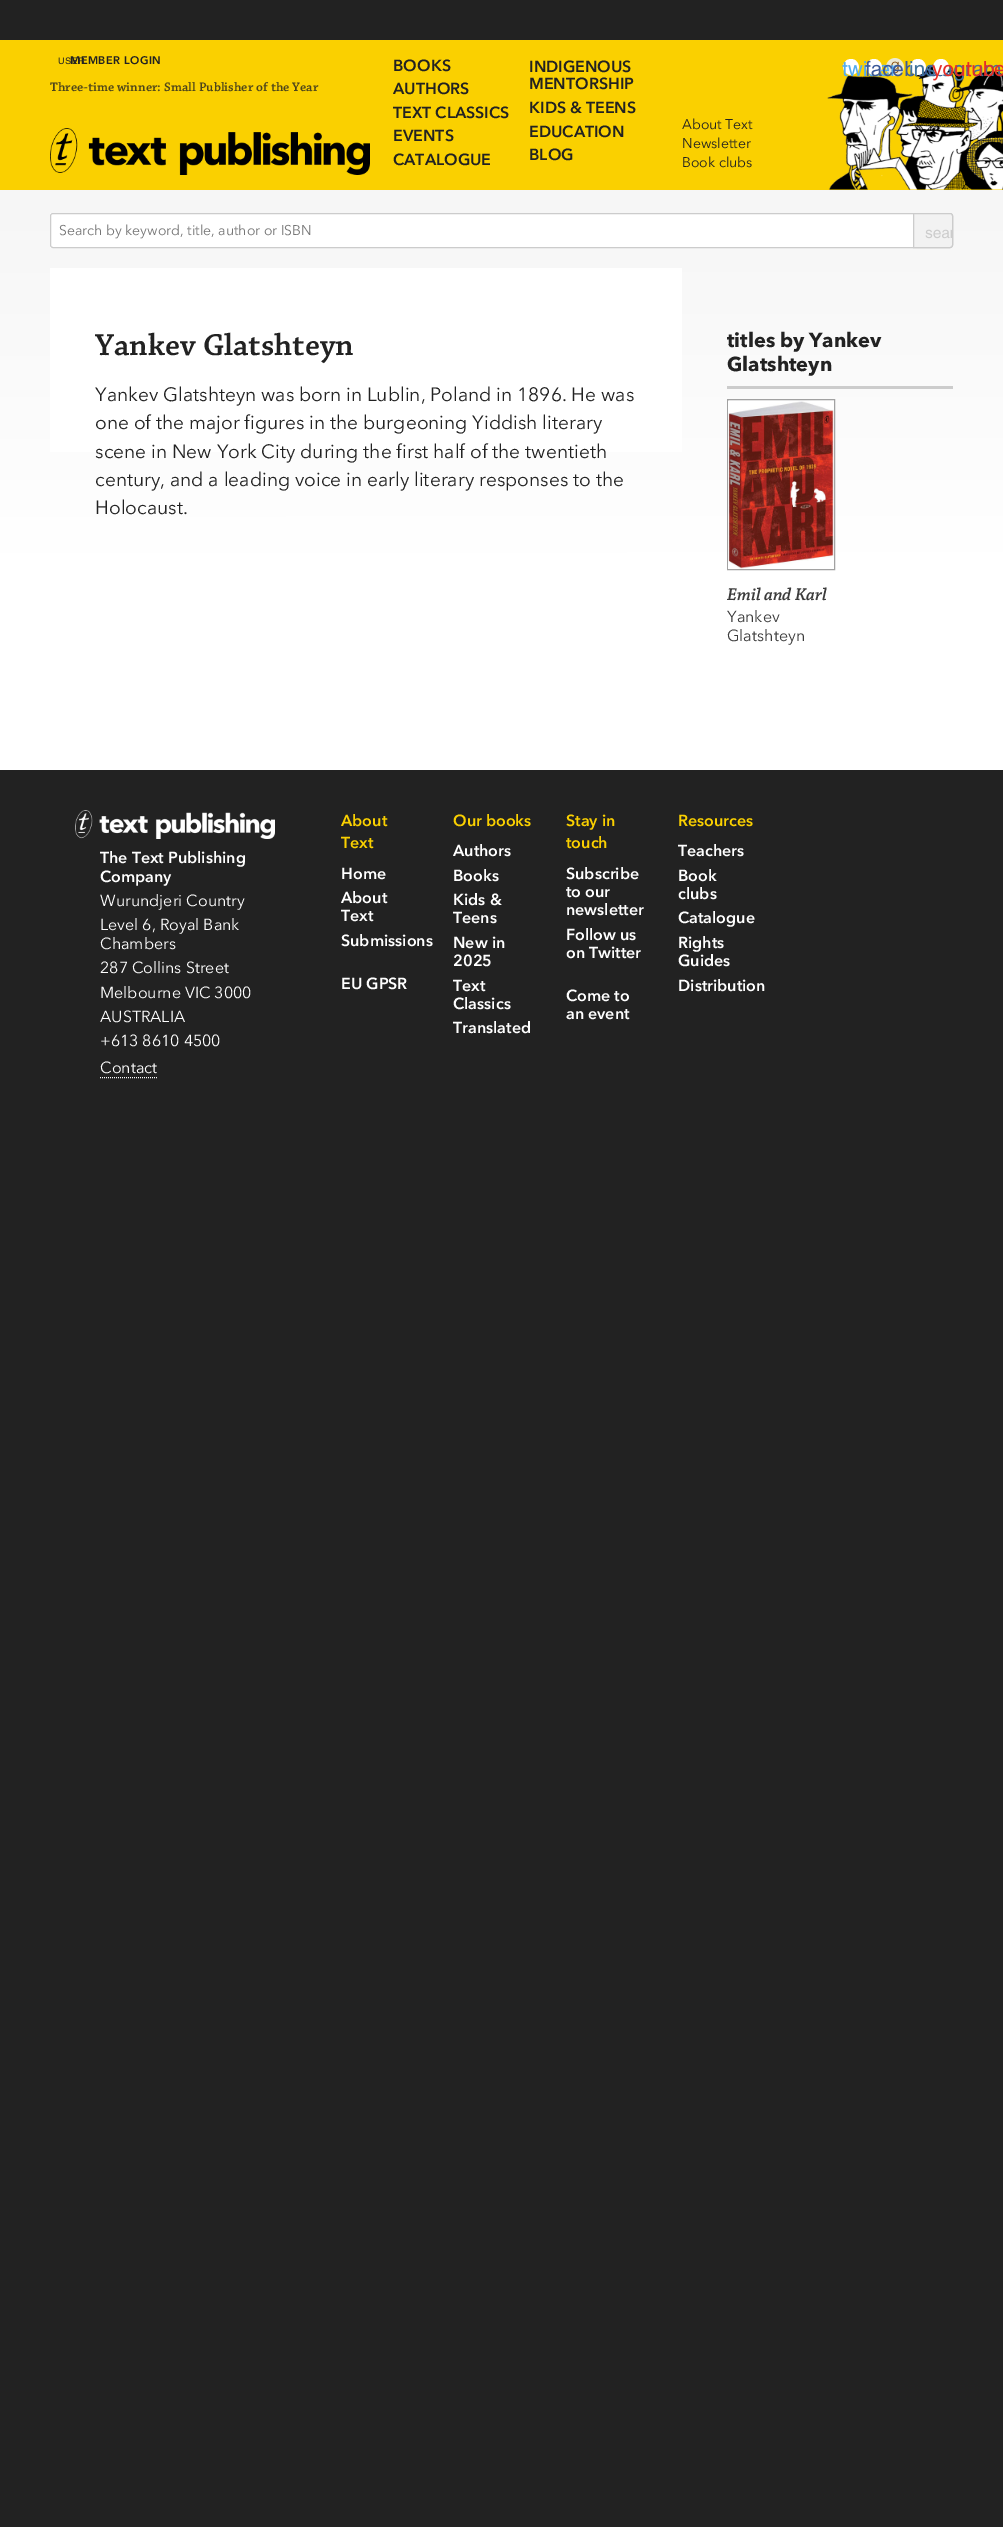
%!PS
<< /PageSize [1003 2527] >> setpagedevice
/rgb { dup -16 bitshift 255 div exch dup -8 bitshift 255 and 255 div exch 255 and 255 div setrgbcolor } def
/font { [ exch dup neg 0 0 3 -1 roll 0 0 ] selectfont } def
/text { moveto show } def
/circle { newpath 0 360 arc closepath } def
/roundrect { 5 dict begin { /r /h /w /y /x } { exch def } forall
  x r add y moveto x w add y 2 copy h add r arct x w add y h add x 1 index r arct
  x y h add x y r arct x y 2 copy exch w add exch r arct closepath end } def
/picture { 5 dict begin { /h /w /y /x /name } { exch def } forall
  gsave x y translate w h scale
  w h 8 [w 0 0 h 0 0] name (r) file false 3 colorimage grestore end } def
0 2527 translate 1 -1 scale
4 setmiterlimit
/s1 { /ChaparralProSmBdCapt-SemiBold 13 font 16#4D451B rgb } def
/s2 { /AvenirNext-Bold 16 font 16#222222 rgb } def
/s3 { /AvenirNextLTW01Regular-Regular 14 font 16#222222 rgb } def
/s4 { /AvenirNextLTW01Regular-Regular 14 font 16#757575 rgb } def
/s5 { /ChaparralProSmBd-SemiBold 32 font 16#222222 rgb } def
/s6 { /AvenirNextLTW01Regular-Regular 19.2 font 16#222222 rgb } def
/s7 { /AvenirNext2-Bold 20 font 16#222222 rgb } def
/s8 { /ChaparralProSmBd-SemiBoldItalic 18 font 16#3C3C3C rgb } def
/s9 { /AvenirNextLTW01Regular-Regular 16 font 16#3C3C3C rgb } def
/s10 { /AvenirNext-Bold 16 font 16#FFFFFF rgb } def
/s11 { /AvenirNextLTW01Regular-Regular 16 font 16#FFFFFF rgb } def
/s12 { /AvenirNext-Bold 16 font 16#FAD000 rgb } def
16#222222 rgb
0 0 1003 2527 rectfill
gsave 0 190 moveto 1003 190 lineto 1003 770 lineto 0 770 lineto closepath clip newpath
<< /ShadingType 2 /ColorSpace /DeviceRGB /Coords [501 0 502 1119] /Extend [true true] /Function << /FunctionType 3 /Domain [0 1] /Functions [<< /FunctionType 2 /Domain [0 1] /C0 [0.949 0.949 0.949] /C1 [1 1 1] /N 1 >> << /FunctionType 2 /Domain [0 1] /C0 [1 1 1] /C1 [1 1 1] /N 1 >>] /Bounds [0.5] /Encode [0 1 0 1] >> >> shfill grestore
16#FAD000 rgb
0 40 1003 150 rectfill
(pic1.raw) 58 57 27 8 picture
/AvenirNext-Bold 11 font
16#222222 rgb
70 64 moveto 0.5 0 (MEMBER LOGIN) ashow
s1
(Three-time winner: Small Publisher of the Year) 50 91 text
(pic2.raw) 50 128 320 47 picture
s2
(BOOKS) 393 71 text
(AUTHORS) 393 94 text
(TEXT CLASSICS) 393 118 text
(EVENTS) 393 141 text
(CATALOGUE) 393 165 text
(INDIGENOUS) 529 72 text
(MENTORSHIP) 529 89 text
(KIDS & TEENS) 529 113 text
(EDUCATION) 529 137 text
(BLOG) 529 160 text
s3
(About Text) 682 129 text
(Newsletter) 682 148 text
(Book clubs) 682 167 text
(pic8.raw) 827 63 176 127 picture
(pic3.raw) 886 58 18 18 picture
16#FFFFFF rgb
851 67 8 circle fill
(pic4.raw) 842 61 55 16 picture
874 67 8 circle fill
(pic5.raw) 865 60 85 17 picture
918 67 8 circle fill
(pic6.raw) 910 61 91 20 picture
941 67 8 circle fill
(pic7.raw) 932 61 71 20 picture
50 213 903 35 rectfill
16#CCCCCC rgb
50.5 213.5 902 34 2.5 roundrect stroke
s4
(Search by keyword, title, author or ISBN) 59 235 text
16#F2F2F2 rgb
913.5 213.5 moveto 950 213.5 lineto 951.5 213.5 952.5 214.5 952.5 216 curveto 952.5 245 lineto 952.5 246.5 951.5 247.5 950 247.5 curveto 913.5 247.5 lineto closepath gsave fill grestore
16#CCCCCC rgb
stroke
(pic9.raw) 925 229 27 10 picture
16#FFFFFF rgb
50 268 632 184 rectfill
s5
(Yankev Glatshteyn) 95 355 text
s6
(Yankev Glatshteyn was born in Lublin, Poland in 1896. He was) 95 401 text
(one of the major figures in the burgeoning Yiddish literary) 95 429 text
(scene in New York City during the first half of the twentieth) 95 458 text
(century, and a leading voice in early literary responses to the) 95 486 text
(Holocaust.) 95 514 text
16#CCCCCC rgb
727 386 226 3 rectfill
s7
(titles by) 727 347 text
(Yankev) 809 347 text
(Glatshteyn) 727 371 text
16#A2A2A2 rgb
727.5 399.5 107 170 rectstroke
(pic10.raw) 728 401 106 168 picture
s8
(Emil and Karl) 727 600 text
s9
(Yankev) 727 622 text
(Glatshteyn) 727 641 text
(pic11.raw) 75 810 200 29 picture
s10
(The Text Publishing) 100 863 text
(Company) 100 882 text
s11
(Wurundjeri Country) 100 906 text
(Level 6, Royal Bank) 100 930 text
(Chambers) 100 949 text
(287 Collins Street) 100 973 text
(Melbourne VIC 3000) 100 998 text
(AUSTRALIA) 100 1022 text
(+613 8610 4500) 100 1046 text
(Contact) 100 1073 text
[1 1] 0 setdash
100 1077.5 moveto 158 1077.5 lineto stroke
s12
(About) 341 826 text
(Text) 341 848 text
s10
(Home) 341 879 text
(About) 341 903 text
(Text) 341 921 text
(Submissions) 341 946 text
(EU GPSR) 341 989 text
s12
(Our books) 453 826 text
s10
(Authors) 453 856 text
(Books) 453 881 text
(Kids &) 453 905 text
(Teens) 453 923 text
(New in) 453 948 text
(2025) 453 966 text
(Text) 453 991 text
(Classics) 453 1009 text
(Translated) 453 1033 text
s12
(Stay in) 566 826 text
(touch) 566 848 text
s10
(Subscribe) 566 879 text
(to our) 566 897 text
(newsletter) 566 915 text
(Follow us) 566 940 text
(on Twitter) 566 958 text
(Come to) 566 1001 text
(an event) 566 1019 text
s12
(Resources) 678 826 text
s10
(Teachers) 678 856 text
(Book) 678 881 text
(clubs) 678 899 text
(Catalogue) 678 923 text
(Rights) 678 948 text
(Guides) 678 966 text
(Distribution) 678 991 text
showpage
